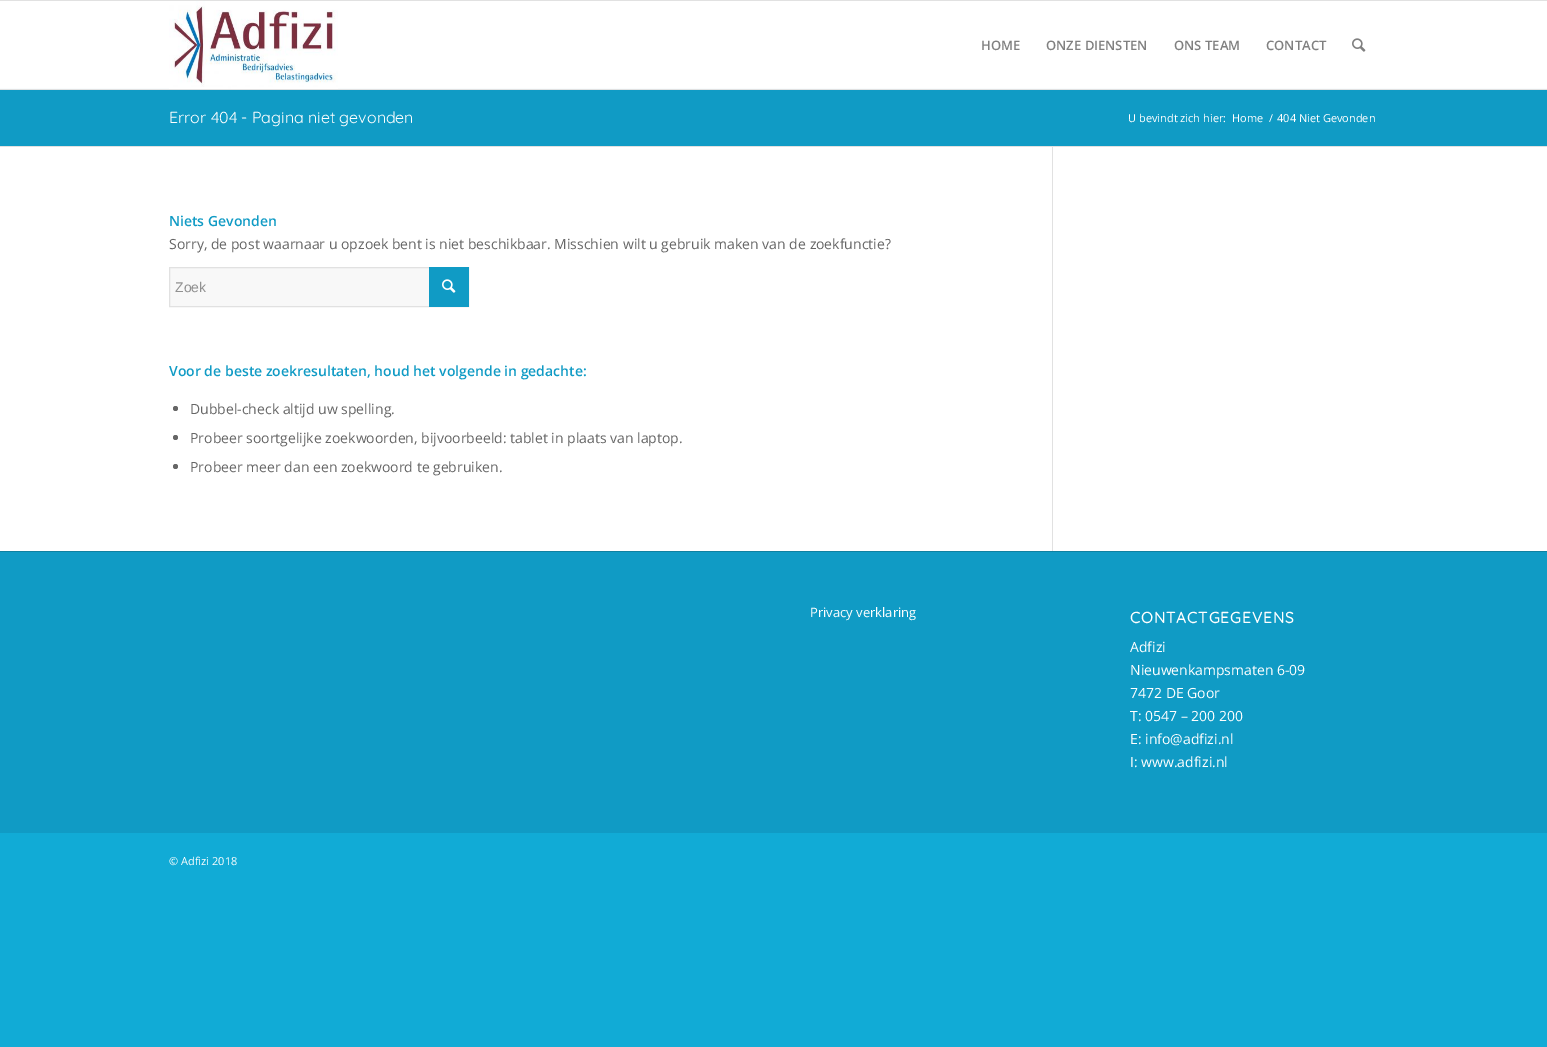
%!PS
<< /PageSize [1547 1047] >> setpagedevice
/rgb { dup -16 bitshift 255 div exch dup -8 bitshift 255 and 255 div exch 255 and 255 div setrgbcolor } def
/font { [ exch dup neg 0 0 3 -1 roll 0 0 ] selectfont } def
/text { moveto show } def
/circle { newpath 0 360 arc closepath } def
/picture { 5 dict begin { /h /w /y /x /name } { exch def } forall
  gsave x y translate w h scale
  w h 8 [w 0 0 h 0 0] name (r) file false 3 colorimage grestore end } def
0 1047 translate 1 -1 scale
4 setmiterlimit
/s1 { /OpenSans-SemiBold 13 font 16#808080 rgb } def
/s2 { /Quicksand-Light 16 font 16#FFFFFF rgb } def
/s3 { /OpenSans-Regular 11 font 16#FFFFFF rgb } def
/s4 { /OpenSans-SemiBold 14 font 16#109BC5 rgb } def
/s5 { /OpenSans-Regular 14 font 16#666666 rgb } def
/s6 { /LiberationSans-Regular 14 font 16#919191 rgb } def
/s7 { /OpenSans-Regular 13 font 16#FFFFFF rgb } def
/s8 { /OpenSans-Regular 14 font 16#FFFFFF rgb } def
16#11ABD6 rgb
0 0 1547 1047 rectfill
16#E1E1E1 rgb
0 0 1547 1 rectfill
0 89 1547 1 rectfill
16#FFFFFF rgb
0 1 1547 87 rectfill
16#F9FCFD rgb
0 88 1547 1 rectfill
(pic1.raw) 169 1 169 88 picture
s1
(HOME) 981 50 text
(ONZE DIENSTEN) 1046 50 text
(ONS TEAM) 1174 50 text
(CONTACT) 1266 50 text
(pic2.raw) 1352 38 14 14 picture
16#FFFFFF rgb
0 147 1547 404 rectfill
16#109BC5 rgb
0 90 1547 56 rectfill
s2
(Error 404 - Pagina niet gevonden) 169 123 text
s3
(U bevindt zich hier:) 1128 122 text
(Home) 1232 122 text
(/) 1269 122 text
(404 Niet Gevonden) 1277 122 text
16#E1E1E1 rgb
0 146 1547 1 rectfill
1052 147 1 404 rectfill
s4
(Niets Gevonden) 169 226 text
s5
(Sorry, de post waarnaar u opzoek bent is niet beschikbaar. Misschien wilt u gebruik maken van de zoekfunctie?) 169 249 text
16#F8F8F8 rgb
170 268 259 38 rectfill
16#E1E1E1 rgb
169.5 267.5 299 39 rectstroke
s6
(Zoek) 175 292 text
16#109BC5 rgb
429 267 40 40 rectfill
(pic3.raw) 442 279 14 14 picture
s4
(Voor de beste zoekresultaten, houd het volgende in gedachte:) 169 376 text
16#666666 rgb
175.5 408.5 2.5 circle fill
s5
(Dubbel-check altijd uw spelling.) 190 414 text
175.5 437.5 2.5 circle fill
(Probeer soortgelijke zoekwoorden, bijvoorbeeld: tablet in plaats van laptop.) 190 443 text
175.5 466.5 2.5 circle fill
(Probeer meer dan een zoekwoord te gebruiken.) 190 472 text
16#109BC5 rgb
0 552 1547 281 rectfill
16#0F81A1 rgb
0 551 1547 1 rectfill
s7
(Privacy verklaring) 810 617 text
/Quicksand-Bold 15.4 font
1130 623 moveto 1 0 (CONTACTGEGEVENS) ashow
s8
(Adfizi) 1130 652 text
(Nieuwenkampsmaten 6-09) 1130 675 text
(7472 DE Goor) 1130 698 text
(T: 0547 – 200 200) 1130 721 text
(E: info@adfizi.nl) 1130 744 text
(I: www.adfizi.nl) 1130 767 text
s3
(© Adfizi 2018) 169 865 text
showpage
